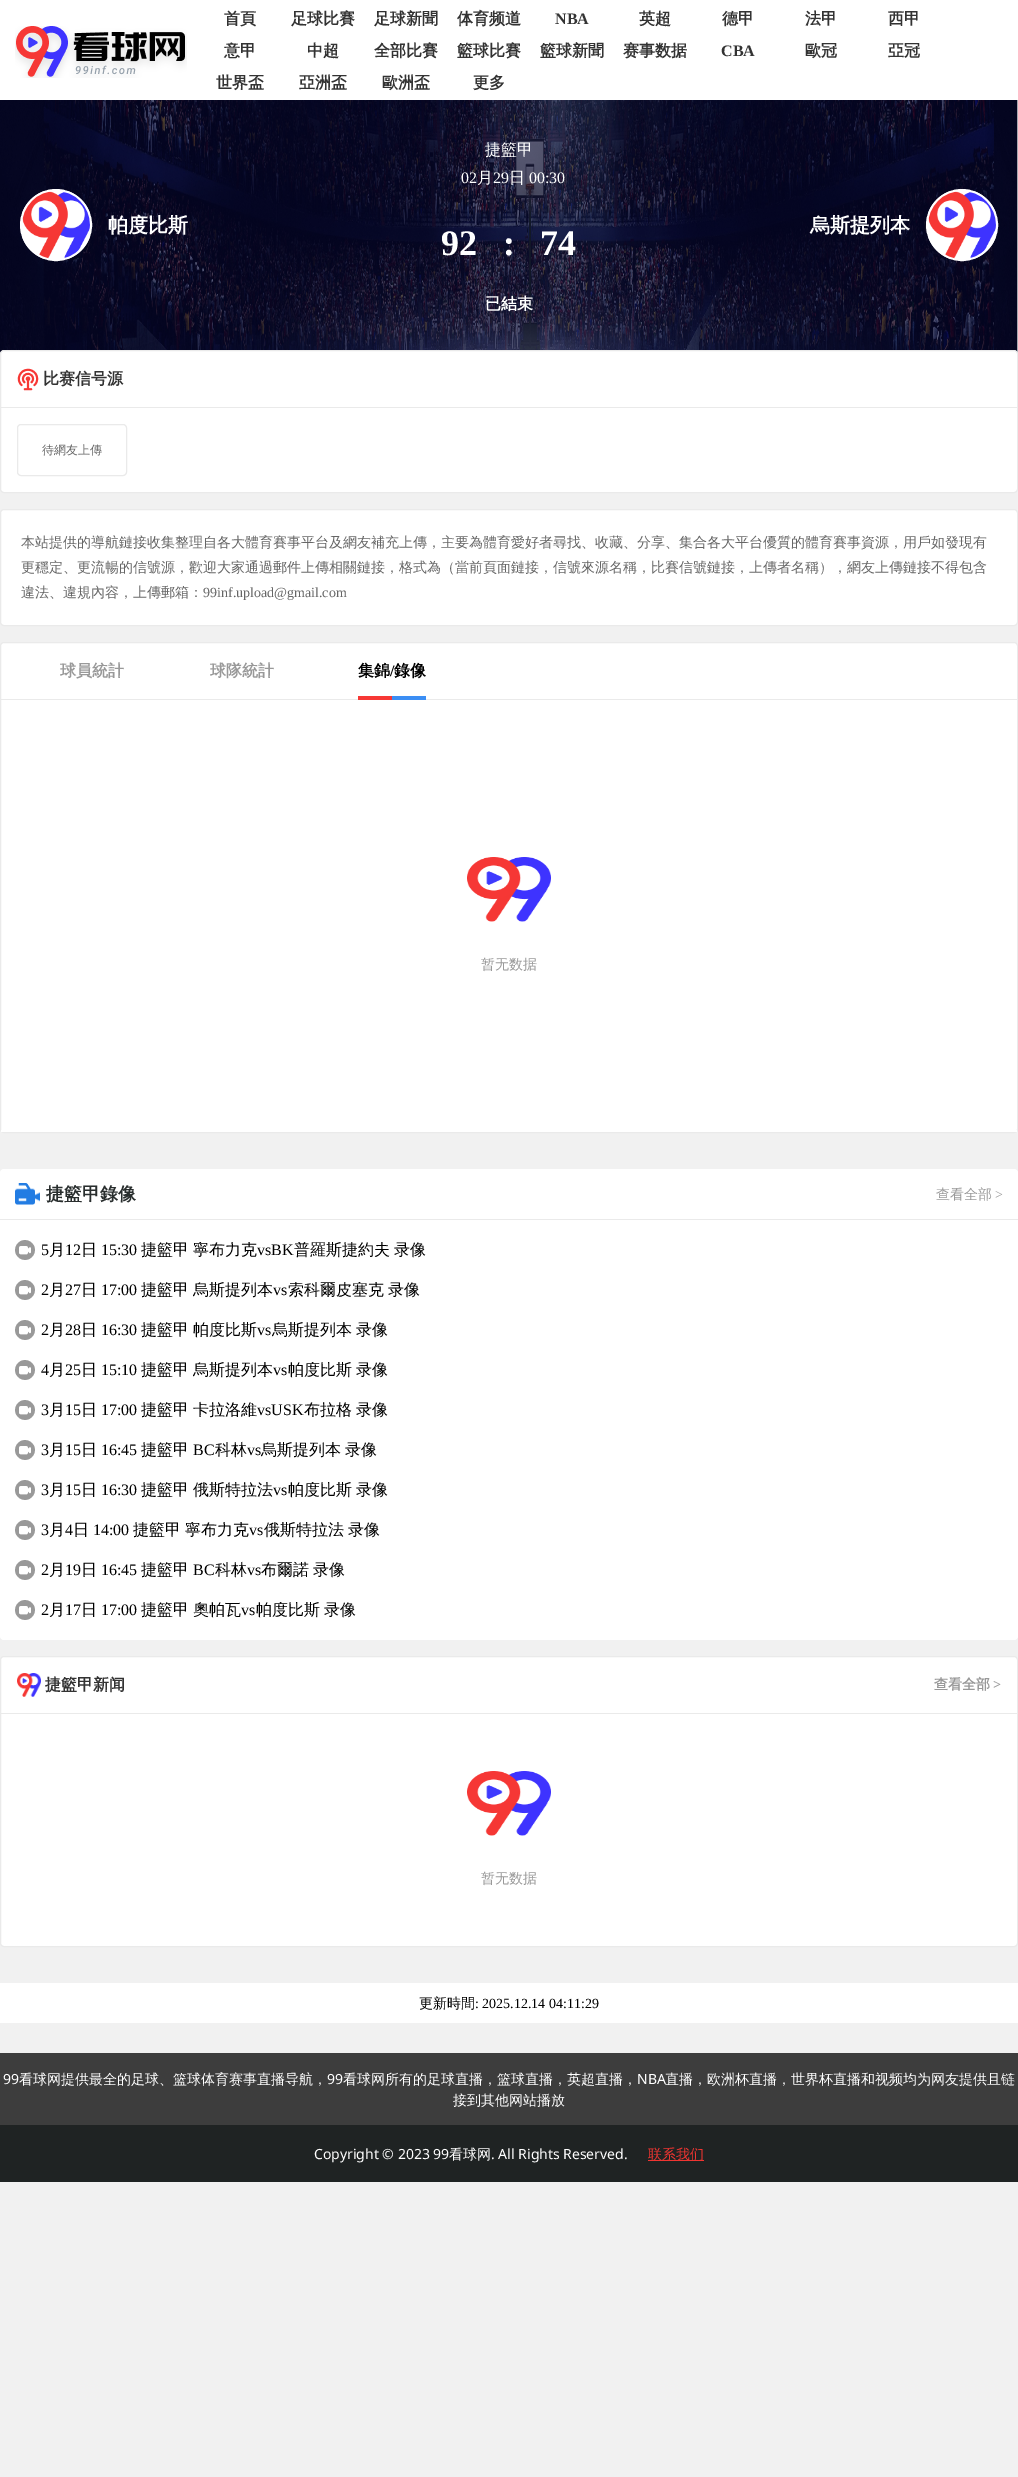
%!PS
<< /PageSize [1018 2477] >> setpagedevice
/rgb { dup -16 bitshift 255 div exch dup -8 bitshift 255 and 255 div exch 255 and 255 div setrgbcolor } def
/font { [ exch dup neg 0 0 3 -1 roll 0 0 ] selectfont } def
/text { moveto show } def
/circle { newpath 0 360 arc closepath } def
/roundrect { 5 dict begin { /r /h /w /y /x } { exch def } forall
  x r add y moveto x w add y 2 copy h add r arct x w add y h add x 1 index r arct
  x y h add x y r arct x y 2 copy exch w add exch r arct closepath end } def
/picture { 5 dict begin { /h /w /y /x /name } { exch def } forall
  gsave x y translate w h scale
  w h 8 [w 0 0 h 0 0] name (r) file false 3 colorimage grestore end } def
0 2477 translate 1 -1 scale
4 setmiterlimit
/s1 { /WenQuanYiZenHei-Bold 16 font 16#333333 rgb } def
/s2 { /LiberationSerif-Bold 16 font 16#333333 rgb } def
/s3 { /WenQuanYiZenHei-Bold 20 font 16#FFFFFF rgb } def
/s4 { /WenQuanYiZenHei-Medium 16 font 16#FFFFFF rgb } def
/s5 { /LiberationSerif-Regular 16 font 16#FFFFFF rgb } def
/s6 { /LiberationSerif-Bold 36 font 16#FFFFFF rgb } def
/s7 { /WenQuanYiZenHei-Bold 16 font 16#FFFFFF rgb } def
/s8 { /WenQuanYiZenHei-Medium 12 font 16#666666 rgb } def
/s9 { /WenQuanYiZenHei-Medium 14 font 16#666666 rgb } def
/s10 { /LiberationSerif-Regular 14 font 16#666666 rgb } def
/s11 { /WenQuanYiZenHei-Bold 16 font 16#999999 rgb } def
/s12 { /WenQuanYiZenHei-Bold 16 font 16#000000 rgb } def
/s13 { /LiberationSerif-Bold 16 font 16#000000 rgb } def
/s14 { /WenQuanYiZenHei-Medium 14 font 16#999999 rgb } def
/s15 { /WenQuanYiZenHei-Bold 18 font 16#292E2E rgb } def
/s16 { /LiberationSerif-Regular 14 font 16#999999 rgb } def
/s17 { /LiberationSerif-Regular 16 font 16#000000 rgb } def
/s18 { /WenQuanYiZenHei-Medium 16 font 16#000000 rgb } def
/s19 { /WenQuanYiZenHei-Bold 14 font 16#999999 rgb } def
/s20 { /LiberationSerif-Bold 14 font 16#999999 rgb } def
/s21 { /WenQuanYiZenHei-Medium 14 font 16#000000 rgb } def
/s22 { /LiberationSerif-Regular 14 font 16#000000 rgb } def
/s23 { /NotoSans-Regular 14 font 16#FFFFFF rgb } def
/s24 { /WenQuanYiZenHei-Medium 14 font 16#FFFFFF rgb } def
/s25 { /WenQuanYiZenHei-Medium 14 font 16#F03531 rgb } def
16#F1F1F1 rgb
0 0 1018 2477 rectfill
16#FFFFFF rgb
0 0 1018 100 rectfill
(pic1.raw) 15 26 172 52 picture
s1
(首頁) 224 24 text
(足球比賽) 291 24 text
(足球新聞) 374 24 text
(体育频道) 457 24 text
s2
(NBA) 555 24 text
s1
(英超) 639 24 text
(德甲) 722 24 text
(法甲) 805 24 text
(西甲) 888 24 text
(意甲) 224 56 text
(中超) 307 56 text
(全部比賽) 374 56 text
(籃球比賽) 457 56 text
(籃球新聞) 540 56 text
(赛事数据) 623 56 text
s2
(CBA) 721 56 text
s1
(歐冠) 805 56 text
(亞冠) 888 56 text
(世界盃) 216 88 text
(亞洲盃) 299 88 text
(歐洲盃) 382 88 text
(更多) 473 88 text
(pic2.raw) 0 100 1018 254 picture
16#FFFFFF rgb
56 225 35 circle gsave fill grestore
2 setlinewidth
stroke
(pic3.raw) 22 191 68 68 picture
s3
(帕度比斯) 108 232 text
s4
(捷籃甲) 485 155 text
s5
(02) 461 183 text
s4
(月) 477 183 text
s5
(29) 493 183 text
s4
(日) 509 183 text
s5
(00:30) 529 183 text
s6
(92) 441 255 text
(:) 503 255 text
(74) 540 255 text
s7
(已結束) 485 309 text
s3
(烏斯提列本) 810 232 text
962 225 35 circle gsave fill grestore
stroke
(pic4.raw) 928 191 68 68 picture
0.5 350.5 1017 142 3.5 roundrect gsave fill grestore
16#EAEAEA rgb
1 setlinewidth
stroke
1 407 1016 1 rectfill
(pic5.raw) 17 368 22 23 picture
s1
(比赛信号源) 43 384 text
16#EAEAEA rgb
17.5 424.5 109 51 3.5 roundrect stroke
s8
(待網友上傳) 42 454 text
16#FFFFFF rgb
0.5 509.5 1017 116 3.5 roundrect gsave fill grestore
16#EAEAEA rgb
stroke
s9
(本站提供的導航鏈接收集整理自各大體育賽事平台及網友補充上傳，主要為體育愛好者尋找、收藏、分享、集合各大平台優質的體育賽事資源，用戶如發現有) 21 547 text
(更穩定、更流暢的信號源，歡迎大家通過郵件上傳相關鏈接，格式為（當前頁面鏈接，信號來源名稱，比賽信號鏈接，上傳者名稱），網友上傳鏈接不得包含) 21 572 text
(違法、違規內容，上傳郵箱：) 21 597 text
s10
(99inf.upload@gmail.com) 203 597 text
16#FFFFFF rgb
0.5 642.5 1017 490 3.5 roundrect gsave fill grestore
16#EAEAEA rgb
stroke
1 699 1016 1 rectfill
s11
(球員統計) 60 676 text
(球隊統計) 210 676 text
s12
(集錦) 358 676 text
s13
(/) 390 676 text
s12
(錄像) 394 676 text
16#F73835 rgb
358 696 34 4 rectfill
16#3B8EF4 rgb
392 696 34 4 rectfill
16#FFFFFF rgb
1 1130 1016 2 rectfill
(pic6.raw) 467 857 84 65 picture
s14
(暂无数据) 481 969 text
16#FFFFFF rgb
0 1169 1018 471 4 roundrect fill
16#EAEAEA rgb
0 1219 1018 1 rectfill
(pic7.raw) 15 1183 25 22 picture
s15
(捷籃甲錄像) 46 1200 text
s14
(查看全部) 936 1199 text
s16
(>) 995 1199 text
(pic8.raw) 15 1240 20 20 picture
s17
(5) 41 1255 text
s18
(月) 49 1255 text
s17
(12) 65 1255 text
s18
(日) 81 1255 text
s17
(15:30) 101 1255 text
s18
(捷籃甲) 141 1255 text
gsave
41 1242 962 16 rectclip
(寧布力克) 193 1255 text
grestore
s17
(vsBK) 257 1255 text
gsave
41 1242 962 16 rectclip
/WenQuanYiZenHei-Medium 16 font
294 1255 moveto -1 0 32 (普羅斯捷約夫 录像) widthshow
grestore
(pic8.raw) 15 1280 20 20 picture
(2) 41 1295 text
s18
(月) 49 1295 text
s17
(27) 65 1295 text
s18
(日) 81 1295 text
s17
(17:00) 101 1295 text
s18
(捷籃甲) 141 1295 text
gsave
41 1282 962 16 rectclip
(烏斯提列本) 193 1295 text
grestore
s17
(vs) 273 1295 text
gsave
41 1282 962 16 rectclip
/WenQuanYiZenHei-Medium 16 font
288 1295 moveto -1 0 32 (索科爾皮塞克 录像) widthshow
grestore
(pic8.raw) 15 1320 20 20 picture
(2) 41 1335 text
s18
(月) 49 1335 text
s17
(28) 65 1335 text
s18
(日) 81 1335 text
s17
(16:30) 101 1335 text
s18
(捷籃甲) 141 1335 text
gsave
41 1322 962 16 rectclip
(帕度比斯) 193 1335 text
grestore
s17
(vs) 257 1335 text
gsave
41 1322 962 16 rectclip
/WenQuanYiZenHei-Medium 16 font
272 1335 moveto -1 0 32 (烏斯提列本 录像) widthshow
grestore
(pic8.raw) 15 1360 20 20 picture
(4) 41 1375 text
s18
(月) 49 1375 text
s17
(25) 65 1375 text
s18
(日) 81 1375 text
s17
(15:10) 101 1375 text
s18
(捷籃甲) 141 1375 text
gsave
41 1362 962 16 rectclip
(烏斯提列本) 193 1375 text
grestore
s17
(vs) 273 1375 text
gsave
41 1362 962 16 rectclip
/WenQuanYiZenHei-Medium 16 font
288 1375 moveto -1 0 32 (帕度比斯 录像) widthshow
grestore
(pic8.raw) 15 1400 20 20 picture
(3) 41 1415 text
s18
(月) 49 1415 text
s17
(15) 65 1415 text
s18
(日) 81 1415 text
s17
(17:00) 101 1415 text
s18
(捷籃甲) 141 1415 text
(卡拉洛維) 193 1415 text
s17
(vsUSK) 257 1415 text
/WenQuanYiZenHei-Medium 16 font
304 1415 moveto -1 0 32 (布拉格 录像) widthshow
(pic8.raw) 15 1440 20 20 picture
s17
(3) 41 1455 text
s18
(月) 49 1455 text
s17
(15) 65 1455 text
s18
(日) 81 1455 text
s17
(16:45) 101 1455 text
s18
(捷籃甲) 141 1455 text
s17
(BC) 193 1455 text
s18
(科林) 215 1455 text
s17
(vs) 247 1455 text
gsave
41 1442 962 16 rectclip
/WenQuanYiZenHei-Medium 16 font
261 1455 moveto -1 0 32 (烏斯提列本 录像) widthshow
grestore
(pic8.raw) 15 1480 20 20 picture
(3) 41 1495 text
s18
(月) 49 1495 text
s17
(15) 65 1495 text
s18
(日) 81 1495 text
s17
(16:30) 101 1495 text
s18
(捷籃甲) 141 1495 text
gsave
41 1482 962 16 rectclip
(俄斯特拉法) 193 1495 text
grestore
s17
(vs) 273 1495 text
gsave
41 1482 962 16 rectclip
/WenQuanYiZenHei-Medium 16 font
288 1495 moveto -1 0 32 (帕度比斯 录像) widthshow
grestore
(pic8.raw) 15 1520 20 20 picture
(3) 41 1535 text
s18
(月) 49 1535 text
s17
(4) 65 1535 text
s18
(日) 73 1535 text
s17
(14:00) 93 1535 text
s18
(捷籃甲) 133 1535 text
gsave
41 1522 962 16 rectclip
(寧布力克) 185 1535 text
grestore
s17
(vs) 249 1535 text
gsave
41 1522 962 16 rectclip
/WenQuanYiZenHei-Medium 16 font
264 1535 moveto -1 0 32 (俄斯特拉法 录像) widthshow
grestore
(pic8.raw) 15 1560 20 20 picture
(2) 41 1575 text
s18
(月) 49 1575 text
s17
(19) 65 1575 text
s18
(日) 81 1575 text
s17
(16:45) 101 1575 text
s18
(捷籃甲) 141 1575 text
s17
(BC) 193 1575 text
s18
(科林) 215 1575 text
s17
(vs) 247 1575 text
/WenQuanYiZenHei-Medium 16 font
261 1575 moveto -1 0 32 (布爾諾 录像) widthshow
(pic8.raw) 15 1600 20 20 picture
s17
(2) 41 1615 text
s18
(月) 49 1615 text
s17
(17) 65 1615 text
s18
(日) 81 1615 text
s17
(17:00) 101 1615 text
s18
(捷籃甲) 141 1615 text
(奧帕瓦) 193 1615 text
s17
(vs) 241 1615 text
gsave
41 1602 962 16 rectclip
/WenQuanYiZenHei-Medium 16 font
256 1615 moveto -1 0 32 (帕度比斯 录像) widthshow
grestore
16#FFFFFF rgb
0.5 1656.5 1017 290 3.5 roundrect gsave fill grestore
16#EAEAEA rgb
stroke
1 1713 1016 1 rectfill
(pic9.raw) 17 1673 24 24 picture
s1
(捷籃甲新闻) 45 1690 text
s19
(查看全部) 934 1689 text
s20
(>) 993 1689 text
(pic6.raw) 467 1771 84 65 picture
s14
(暂无数据) 481 1883 text
16#FFFFFF rgb
0 1983 1018 40 rectfill
s21
(更新時間) 419 2008 text
s22
(: 2025.12.14 04:11:29) 475 2008 text
16#3D3D3D rgb
0 2053 1018 72 rectfill
s23
(99) 3 2084 text
s24
(看球网提供最全的足球、篮球体育赛事直播导航，) 19 2084 text
s23
(99) 327 2084 text
s24
(看球网所有的足球直播，篮球直播，英超直播，) 343 2084 text
s23
(NBA) 637 2084 text
s24
(直播，欧洲杯直播，世界杯直播和视频均为网友提供且链) 665 2084 text
(接到其他网站播放) 453 2105 text
16#1F2323 rgb
0 2125 1018 57 rectfill
s23
(Copyright © 2023 99) 314 2159 text
s24
(看球网) 449 2159 text
s23
(. All Rights Reserved.) 491 2159 text
16#F03531 rgb
648 2160 56 1 rectfill
s25
(联系我们) 648 2159 text
showpage
